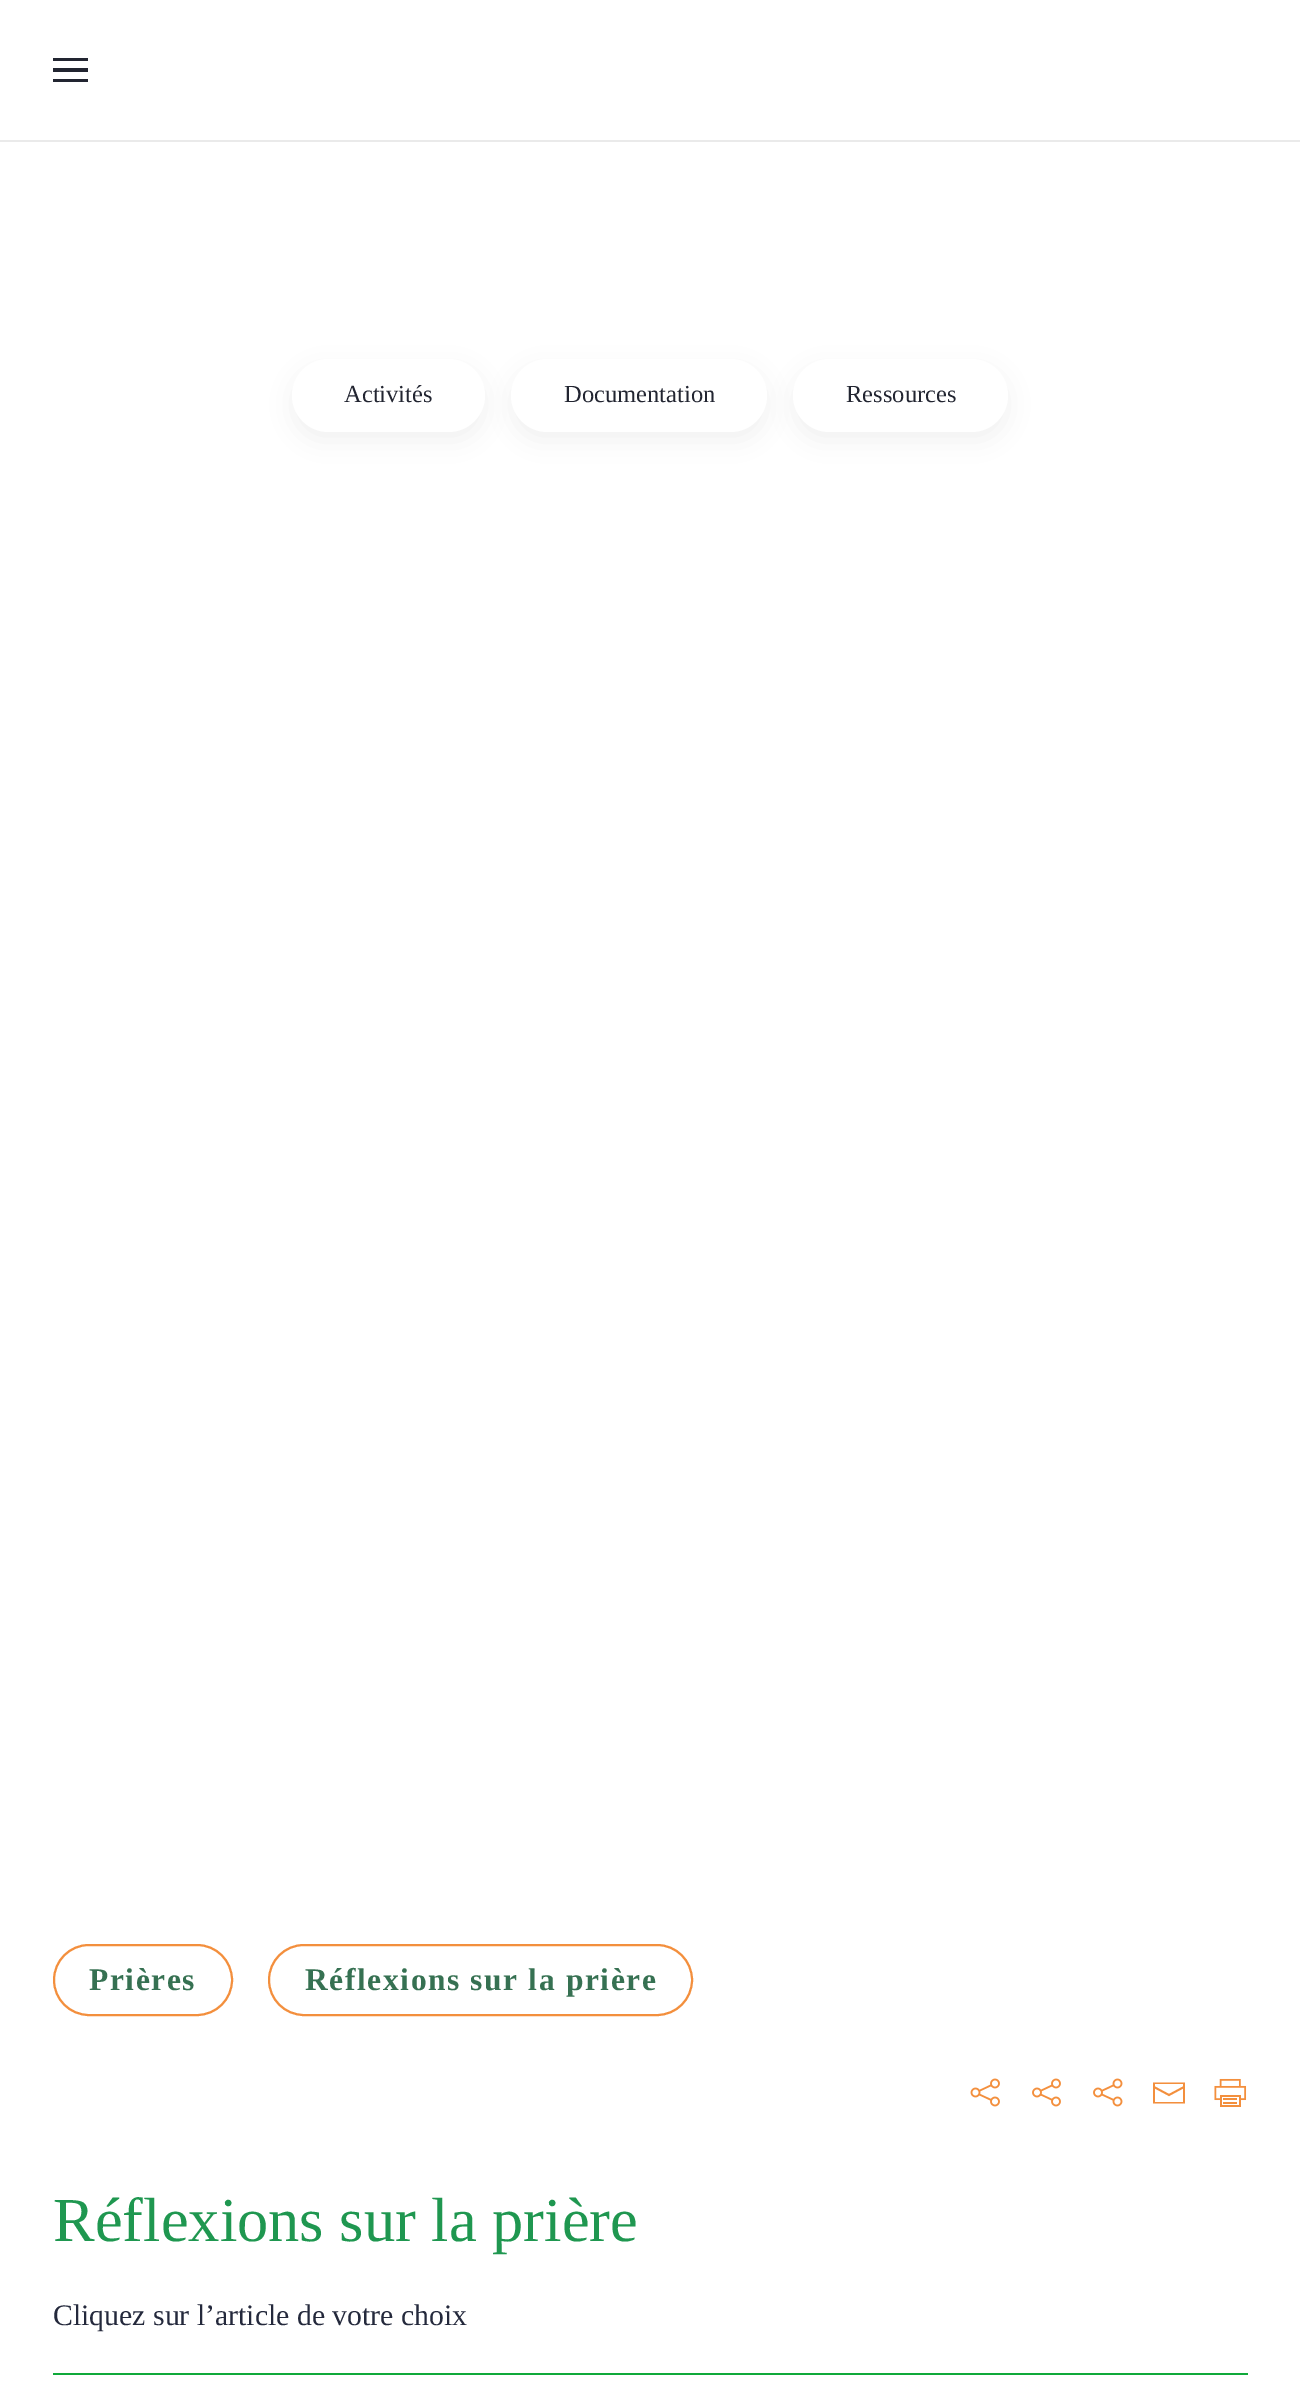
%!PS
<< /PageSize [1300 2386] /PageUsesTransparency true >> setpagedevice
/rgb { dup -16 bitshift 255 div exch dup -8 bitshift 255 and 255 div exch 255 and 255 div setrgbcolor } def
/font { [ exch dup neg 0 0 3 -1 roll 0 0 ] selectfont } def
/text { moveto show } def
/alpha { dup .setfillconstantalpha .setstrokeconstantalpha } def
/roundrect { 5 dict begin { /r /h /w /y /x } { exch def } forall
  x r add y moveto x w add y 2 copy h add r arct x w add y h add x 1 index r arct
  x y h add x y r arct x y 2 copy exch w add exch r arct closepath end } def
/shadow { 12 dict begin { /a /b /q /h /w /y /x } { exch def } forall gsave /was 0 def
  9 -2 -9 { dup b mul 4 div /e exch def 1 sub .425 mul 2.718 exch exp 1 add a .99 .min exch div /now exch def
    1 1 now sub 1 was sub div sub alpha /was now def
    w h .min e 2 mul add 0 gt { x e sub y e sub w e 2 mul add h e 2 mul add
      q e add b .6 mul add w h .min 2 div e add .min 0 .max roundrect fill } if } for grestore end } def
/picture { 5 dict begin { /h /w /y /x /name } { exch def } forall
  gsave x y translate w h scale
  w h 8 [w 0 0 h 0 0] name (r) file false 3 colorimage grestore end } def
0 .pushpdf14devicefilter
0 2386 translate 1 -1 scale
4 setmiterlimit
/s1 { /LiberationSerif-Regular 24.5 font 16#222531 rgb } def
/s2 { /LiberationSerif-Regular 62.5 font 16#1F9750 rgb } def
/s3 { /LiberationSerif-Regular 29.75 font 16#24293C rgb } def
16#FFFFFF rgb
0 0 1300 2386 rectfill
16#EAEAEA rgb
0 140 1300 2 rectfill
16#222531 rgb
53 58 35 3 rectfill
53 68 35 4 rectfill
53 79 35 3 rectfill
16#000000 rgb
292 368 193 73 36.5 13 0.06 shadow
16#FFFFFF rgb
292 359 193 73 36.5 roundrect fill
s1
(Activités) 344 402 text
16#000000 rgb
511 368 256 73 36.5 13 0.06 shadow
16#FFFFFF rgb
511 359 256 73 36.5 roundrect fill
s1
(Documentation) 564 402 text
16#000000 rgb
793 368 215 73 36.5 13 0.06 shadow
16#FFFFFF rgb
793 359 215 73 36.5 roundrect fill
s1
(Ressources) 846 402 text
16#F38F3D rgb
2 setlinewidth
54 1945 178 70 35 roundrect stroke
/LiberationSerif-Bold 31.5 font
16#367152 rgb
89 1990 moveto 1.6 0 (Prières) ashow
16#F38F3D rgb
269 1945 423 70 35 roundrect stroke
16#367152 rgb
305 1990 moveto 1.6 0 (Réflexions sur la prière) ashow
(pic1.raw) 970 2078 30 29 picture
(pic2.raw) 1032 2078 29 29 picture
(pic3.raw) 1093 2078 30 29 picture
16#F38F3D rgb
1.8 setlinewidth
1154 2087 moveto 1169 2095 lineto 1184 2087 lineto stroke
1153 2082.5 moveto 1153 2103.5 lineto 1185 2103.5 lineto 1185 2082.5 lineto closepath 1183 2102 moveto 1155 2102 lineto 1155 2084 lineto 1183 2084 lineto closepath fill
(pic4.raw) 1214 2078 33 29 picture
s2
(Réflexions sur la prière) 53 2241 text
s3
(Cliquez sur l’article de votre choix) 53 2325 text
16#10A93A rgb
53 2373 1195 2 rectfill
.poppdf14devicefilter showpage
